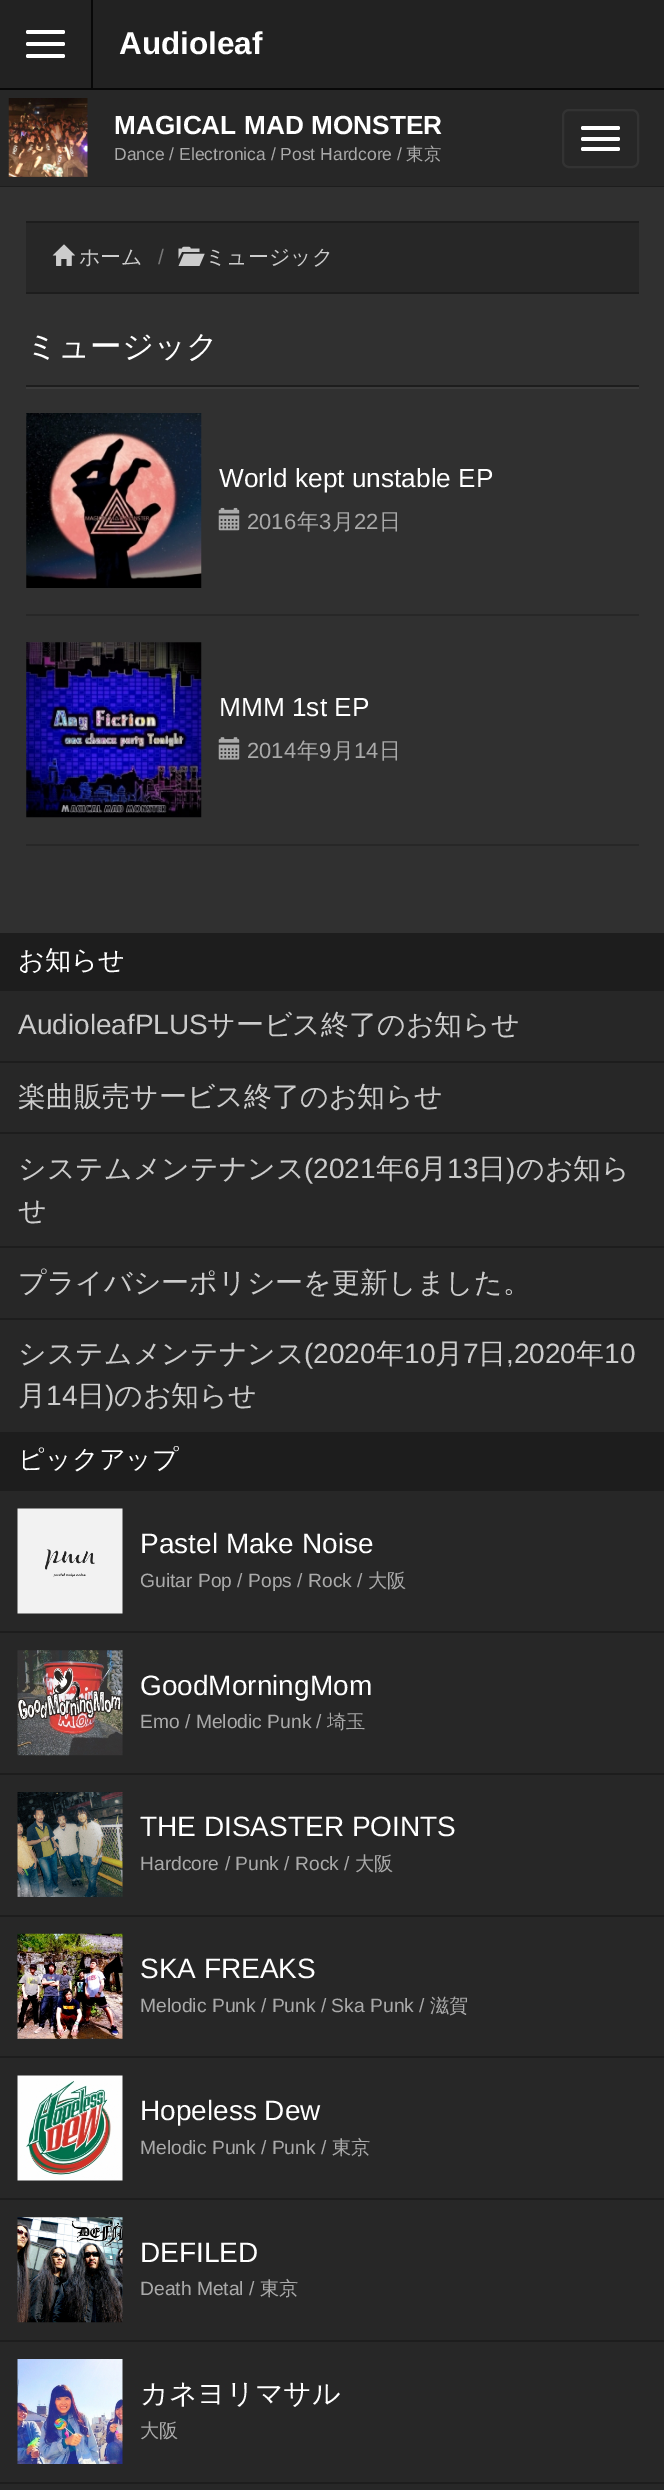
%!PS
<< /PageSize [664 2490] >> setpagedevice
/rgb { dup -16 bitshift 255 div exch dup -8 bitshift 255 and 255 div exch 255 and 255 div setrgbcolor } def
/font { [ exch dup neg 0 0 3 -1 roll 0 0 ] selectfont } def
/text { moveto show } def
/roundrect { 5 dict begin { /r /h /w /y /x } { exch def } forall
  x r add y moveto x w add y 2 copy h add r arct x w add y h add x 1 index r arct
  x y h add x y r arct x y 2 copy exch w add exch r arct closepath end } def
/picture { 5 dict begin { /h /w /y /x /name } { exch def } forall
  gsave x y translate w h scale
  w h 8 [w 0 0 h 0 0] name (r) file false 3 colorimage grestore end } def
0 2490 translate 1 -1 scale
4 setmiterlimit
/s1 { /LiberationSans-Bold 31.5 font 16#FFFFFF rgb } def
/s2 { /LiberationSans-Bold 26.25 font 16#FFFFFF rgb } def
/s3 { /LiberationSans-Regular 17.5 font 16#AAAAAA rgb } def
/s4 { /WenQuanYiZenHei-Medium 17.5 font 16#AAAAAA rgb } def
/s5 { /WenQuanYiZenHei-Medium 21 font 16#CCCCCC rgb } def
/s6 { /LiberationSans-Regular 21 font 16#777777 rgb } def
/s7 { /WenQuanYiZenHei-Medium 31.5 font 16#FFFFFF rgb } def
/s8 { /LiberationSans-Regular 26.25 font 16#FFFFFF rgb } def
/s9 { /LiberationSans-Regular 22 font 16#AAAAAA rgb } def
/s10 { /WenQuanYiZenHei-Medium 22 font 16#AAAAAA rgb } def
/s11 { /WenQuanYiZenHei-Medium 26.25 font 16#FFFFFF rgb } def
/s12 { /LiberationSans-Regular 28 font 16#CCCCCC rgb } def
/s13 { /WenQuanYiZenHei-Medium 28 font 16#CCCCCC rgb } def
/s14 { /LiberationSans-Regular 28 font 16#FFFFFF rgb } def
/s15 { /LiberationSans-Regular 19.25 font 16#AAAAAA rgb } def
/s16 { /WenQuanYiZenHei-Medium 19.25 font 16#AAAAAA rgb } def
/s17 { /WenQuanYiZenHei-Medium 28 font 16#FFFFFF rgb } def
16#303030 rgb
0 0 664 2490 rectfill
16#222222 rgb
0 0 664 88 rectfill
16#080808 rgb
0 88 664 2 rectfill
91 0 2 88 rectfill
16#FFFFFF rgb
26 30 39 4 2 roundrect fill
26 42 39 4 2 roundrect fill
26 54 39 4 2 roundrect fill
s1
(Audioleaf) 119 54 text
16#272727 rgb
0 90 664 96 rectfill
16#1D1D1D rgb
0 186 664 1 rectfill
(pic1.raw) 8 98 80 79 picture
s2
(MAGICAL MAD MONSTER) 114 134 text
s3
(Dance / Electronica / Post Hardcore /) 114 160 text
s4
(東京) 406 160 text
16#333333 rgb
2 setlinewidth
563 110 75 57 6 roundrect stroke
16#FFFFFF rgb
581 126 39 4 2 roundrect fill
581 137 39 4 2 roundrect fill
581 147 39 4 2 roundrect fill
16#272727 rgb
26 223 613 69 rectfill
16#1D1D1D rgb
26 221 613 2 rectfill
26 292 613 2 rectfill
(pic2.raw) 52 244 23 22 picture
s5
(ホーム) 79 264 text
s6
(/) 158 264 text
(pic3.raw) 178 246 27 20 picture
s5
(ミュージック) 205 264 text
16#3B3B3B rgb
26 331 moveto 26 389 lineto 639 389 lineto 639 331 lineto 639 387 lineto 26 387 lineto closepath fill
16#1D1D1D rgb
26 385 613 2 rectfill
s7
(ミュージック) 26 357 text
16#272727 rgb
26 614 613 2 rectfill
(pic4.raw) 26 413 176 175 picture
s8
(World kept unstable EP) 219 487 text
(pic5.raw) 218 507 22 24 picture
s9
(2016) 247 529 text
s10
(年) 297 529 text
s9
(3) 319 529 text
s10
(月) 332 529 text
s9
(22) 354 529 text
s10
(日) 379 529 text
16#272727 rgb
26 844 613 2 rectfill
(pic6.raw) 26 642 176 176 picture
s8
(MMM 1st EP) 219 716 text
(pic7.raw) 218 737 22 23 picture
s9
(2014) 247 758 text
s10
(年) 297 758 text
s9
(9) 319 758 text
s10
(月) 332 758 text
s9
(14) 354 758 text
s10
(日) 379 758 text
16#1D1D1D rgb
0 933 664 58 rectfill
s11
(お知らせ) 18 969 text
16#272727 rgb
0 991 664 70 rectfill
s12
(AudioleafPLUS) 18 1034 text
s13
(サービス終了のお知らせ) 207 1034 text
16#272727 rgb
0 1063 664 69 rectfill
16#1D1D1D rgb
0 1061 664 2 rectfill
s13
(楽曲販売サービス終了のお知らせ) 18 1106 text
16#272727 rgb
0 1134 664 112 rectfill
16#1D1D1D rgb
0 1132 664 2 rectfill
s13
(システムメンテナンス) 18 1178 text
s12
(\(2021) 304 1178 text
s13
(年) 376 1178 text
s12
(6) 404 1178 text
s13
(月) 419 1178 text
s12
(13) 447 1178 text
s13
(日) 478 1178 text
s12
(\)) 506 1178 text
s13
(のお知ら) 516 1178 text
(せ) 18 1220 text
16#272727 rgb
0 1248 664 70 rectfill
16#1D1D1D rgb
0 1246 664 2 rectfill
s13
(プライバシーポリシーを更新しました。) 18 1292 text
16#272727 rgb
0 1320 664 112 rectfill
16#1D1D1D rgb
0 1318 664 2 rectfill
s13
(システムメンテナンス) 18 1363 text
s12
(\(2020) 304 1363 text
s13
(年) 376 1363 text
s12
(10) 404 1363 text
s13
(月) 435 1363 text
s12
(7) 463 1363 text
s13
(日) 478 1363 text
s12
(,2020) 506 1363 text
s13
(年) 576 1363 text
s12
(10) 604 1363 text
s13
(月) 18 1405 text
s12
(14) 46 1405 text
s13
(日) 77 1405 text
s12
(\)) 105 1405 text
s13
(のお知らせ) 114 1405 text
16#1D1D1D rgb
0 1432 664 59 rectfill
s11
(ピックアップ) 18 1468 text
16#272727 rgb
0 1491 664 140 rectfill
(pic8.raw) 17 1508 106 106 picture
s14
(Pastel Make Noise) 140 1553 text
s15
(Guitar Pop / Pops / Rock /) 140 1587 text
s16
(大阪) 368 1587 text
16#272727 rgb
0 1633 664 140 rectfill
16#1D1D1D rgb
0 1631 664 2 rectfill
(pic9.raw) 17 1650 106 106 picture
s14
(GoodMorningMom) 140 1695 text
s15
(Emo / Melodic Punk /) 140 1728 text
s16
(埼玉) 327 1728 text
16#272727 rgb
0 1775 664 140 rectfill
16#1D1D1D rgb
0 1773 664 2 rectfill
(pic10.raw) 17 1792 106 105 picture
s14
(THE DISASTER POINTS) 140 1836 text
s15
(Hardcore / Punk / Rock /) 140 1870 text
s16
(大阪) 355 1870 text
16#272727 rgb
0 1917 664 139 rectfill
16#1D1D1D rgb
0 1915 664 2 rectfill
(pic11.raw) 17 1933 106 106 picture
s14
(SKA FREAKS) 140 1978 text
s15
(Melodic Punk / Punk / Ska Punk /) 140 2012 text
s16
(滋賀) 430 2012 text
16#272727 rgb
0 2058 664 140 rectfill
16#1D1D1D rgb
0 2056 664 2 rectfill
(pic12.raw) 17 2075 106 106 picture
s14
(Hopeless Dew) 140 2120 text
s15
(Melodic Punk / Punk /) 140 2154 text
s16
(東京) 332 2154 text
16#272727 rgb
0 2200 664 140 rectfill
16#1D1D1D rgb
0 2198 664 2 rectfill
(pic13.raw) 17 2217 106 106 picture
s14
(DEFILED) 140 2262 text
s15
(Death Metal /) 140 2295 text
s16
(東京) 260 2295 text
16#272727 rgb
0 2342 664 140 rectfill
16#1D1D1D rgb
0 2340 664 2 rectfill
(pic14.raw) 17 2359 106 105 picture
s17
(カネヨリマサル) 140 2403 text
s16
(大阪) 140 2437 text
16#272727 rgb
0 2484 664 6 rectfill
16#1D1D1D rgb
0 2482 664 2 rectfill
showpage
